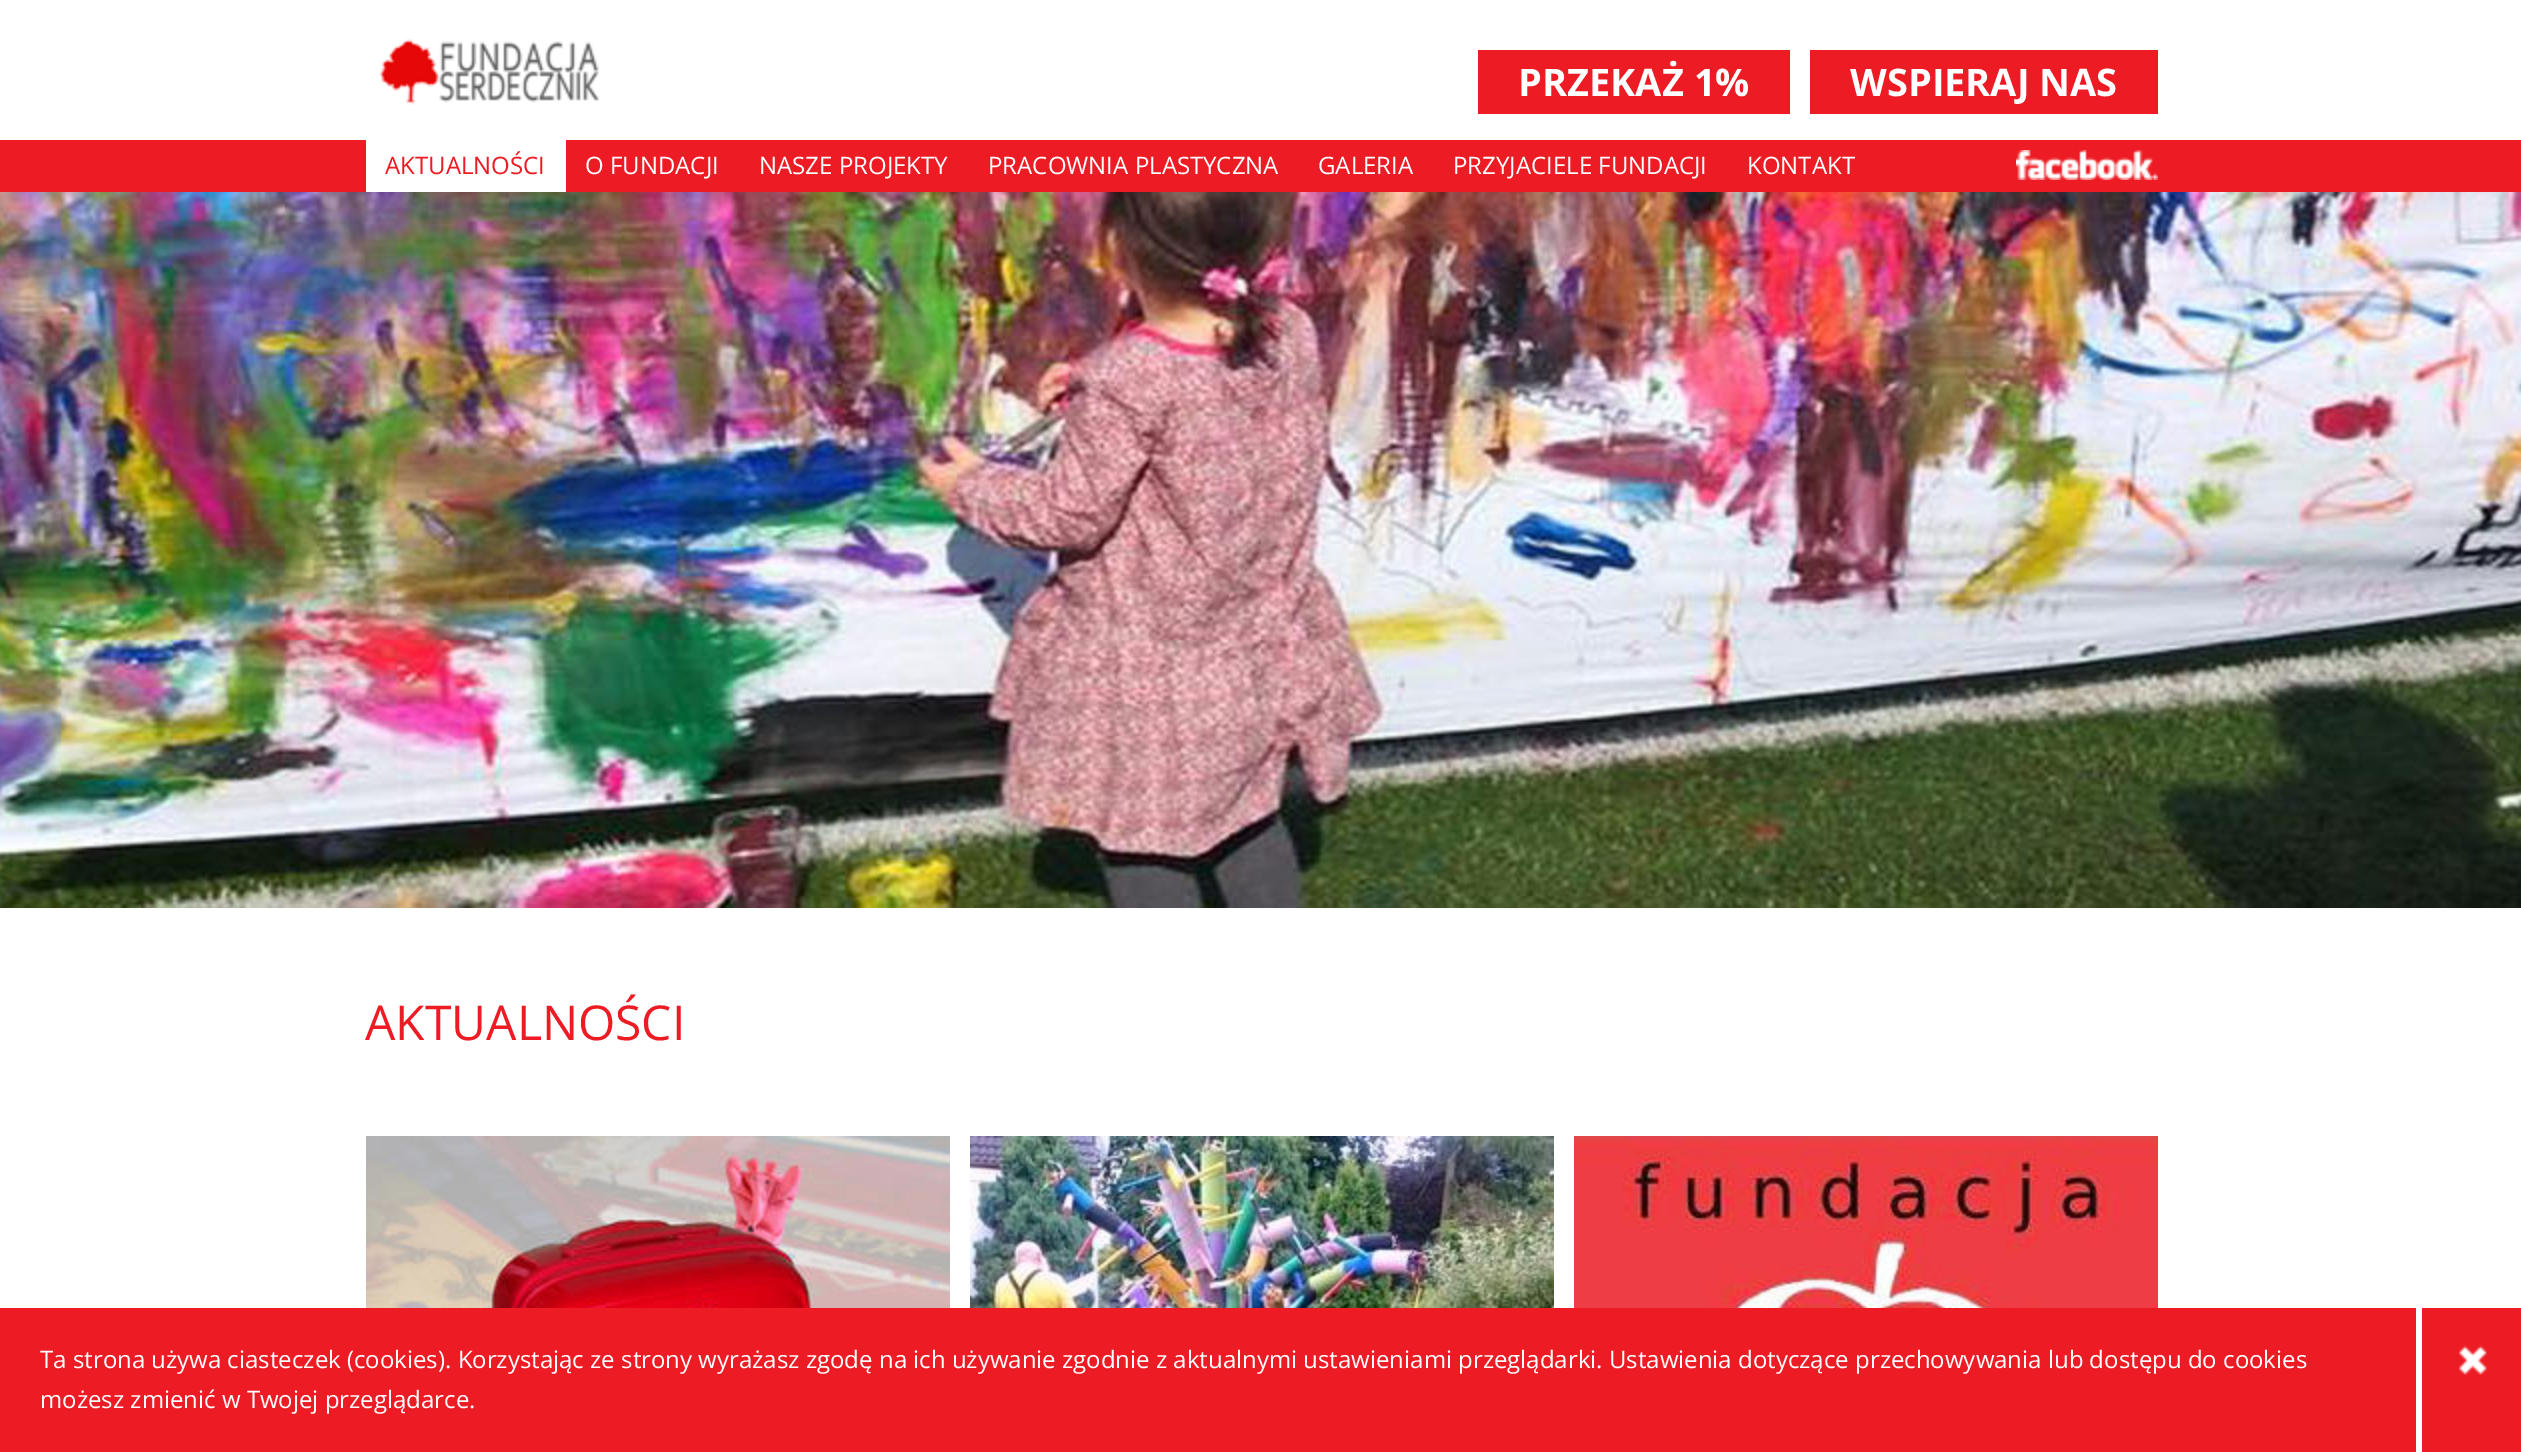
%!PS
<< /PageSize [2521 1452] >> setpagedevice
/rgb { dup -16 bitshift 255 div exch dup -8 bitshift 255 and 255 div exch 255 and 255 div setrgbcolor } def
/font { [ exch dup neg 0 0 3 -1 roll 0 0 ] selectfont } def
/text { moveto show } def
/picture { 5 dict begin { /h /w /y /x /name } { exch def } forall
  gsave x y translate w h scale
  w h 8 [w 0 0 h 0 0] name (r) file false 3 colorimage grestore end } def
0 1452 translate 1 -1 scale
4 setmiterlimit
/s1 { /OpenSans-Bold 38 font 16#FFFFFF rgb } def
/s2 { /OpenSans-Regular 24 font 16#ED1C24 rgb } def
/s3 { /OpenSans-Regular 24 font 16#FFFFFF rgb } def
/s4 { /OpenSans-Regular 48 font 16#ED1C24 rgb } def
16#FFFFFF rgb
0 0 2521 1452 rectfill
(pic1.raw) 379 39 221 66 picture
16#ED1C24 rgb
1478 50 312 64 rectfill
s1
(PRZEKAŻ 1%) 1518 96 text
16#ED1C24 rgb
1810 50 348 64 rectfill
s1
(WSPIERAJ NAS) 1850 96 text
16#ED1C24 rgb
0 140 2521 52 rectfill
16#FFFFFF rgb
366 140 200 52 rectfill
s2
(AKTUALNOŚCI) 385 174 text
s3
(O FUNDACJI) 585 174 text
(NASZE PROJEKTY) 759 174 text
(PRACOWNIA PLASTYCZNA) 988 174 text
(GALERIA) 1318 174 text
(PRZYJACIELE FUNDACJI) 1453 174 text
(KONTAKT) 1747 174 text
(pic2.raw) 2016 150 142 30 picture
(pic3.raw) 0 192 2521 716 picture
s4
(AKTUALNOŚCI) 365 1040 text
(pic4.raw) 366 1136 584 172 picture
(pic5.raw) 970 1136 584 172 picture
(pic6.raw) 1574 1136 584 172 picture
0 1308 2521 144 rectfill
16#FFFFFF rgb
2416 1308 6 144 rectfill
s3
(Ta strona używa ciasteczek \(cookies\). Korzystając ze strony wyrażasz zgodę na ich używanie zgodnie z aktualnymi ustawieniami przeglądarki. Ustawienia dotyczące przechowywania lub dostępu do cookies) 40 1368 text
(możesz zmienić w Twojej przeglądarce.) 40 1408 text
(pic7.raw) 2458 1345 29 30 picture
showpage
